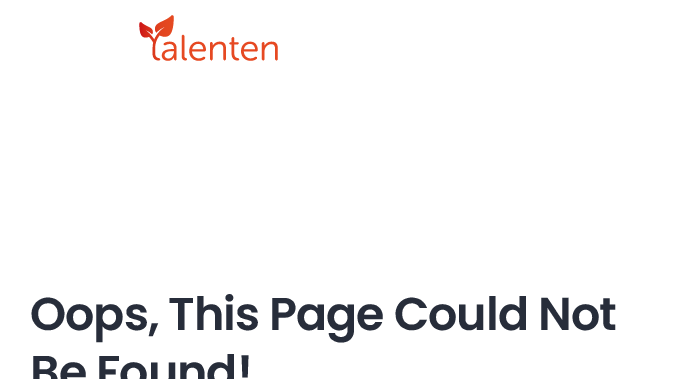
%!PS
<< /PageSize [684 379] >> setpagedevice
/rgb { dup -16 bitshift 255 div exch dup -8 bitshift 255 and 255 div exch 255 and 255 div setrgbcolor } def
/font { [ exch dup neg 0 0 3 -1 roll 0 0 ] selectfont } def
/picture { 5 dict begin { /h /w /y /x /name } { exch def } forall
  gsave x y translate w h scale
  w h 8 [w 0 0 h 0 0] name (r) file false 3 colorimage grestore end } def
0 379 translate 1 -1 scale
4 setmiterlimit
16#FFFFFF rgb
0 0 684 379 rectfill
(pic1.raw) 139 15 139 46 picture
/Poppins-SemiBold 46 font
16#272D3A rgb
30 330 moveto -1 0 (Oops, This Page Could Not) ashow
30 388 moveto -1 0 (Be Found!) ashow
showpage
